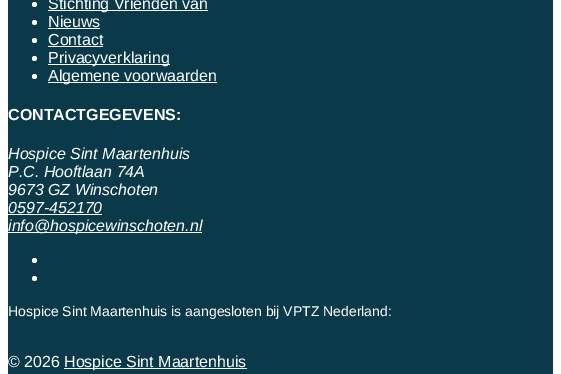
%!PS
<< /PageSize [561 374] >> setpagedevice
/rgb { dup -16 bitshift 255 div exch dup -8 bitshift 255 and 255 div exch 255 and 255 div setrgbcolor } def
/font { [ exch dup neg 0 0 3 -1 roll 0 0 ] selectfont } def
/text { moveto show } def
/circle { newpath 0 360 arc closepath } def
0 374 translate 1 -1 scale
4 setmiterlimit
/s1 { /LiberationSans-Regular 16 font 16#FFFFFF rgb } def
/s2 { /LiberationSans-Bold 16 font 16#FFFFFF rgb } def
/s3 { /LiberationSans-Italic 16 font 16#FFFFFF rgb } def
/s4 { /LiberationSans-Regular 14 font 16#FFFFFF rgb } def
16#FFFFFF rgb
0 0 561 374 rectfill
16#0A394A rgb
8 0 545 374 rectfill
16#FFFFFF rgb
34.5 4.5 2.5 circle fill
48 10 160 1 rectfill
s1
(Stichting Vrienden van) 48 9 text
34.5 22.5 2.5 circle fill
(Nieuws) 48 27 text
48 28 52 1 rectfill
34.5 40.5 2.5 circle fill
(Contact) 48 45 text
48 46 55 1 rectfill
34.5 58.5 2.5 circle fill
48 64 122 1 rectfill
(Privacyverklaring) 48 63 text
34.5 76.5 2.5 circle fill
48 82 169 1 rectfill
(Algemene voorwaarden) 48 81 text
s2
(CONTACTGEGEVENS:) 8 120 text
s3
(Hospice Sint Maartenhuis) 8 159 text
(P.C. Hooftlaan 74A) 8 177 text
(9673 GZ Winschoten) 8 195 text
(0597-452170) 8 213 text
8 214 94 1 rectfill
8 232 194 1 rectfill
(info@hospicewinschoten.nl) 8 231 text
34.5 260.5 2.5 circle fill
34.5 278.5 2.5 circle fill
s4
(Hospice Sint Maartenhuis is aangesloten bij VPTZ Nederland:) 8 316 text
s1
(© 2026) 8 367 text
64 368 183 1 rectfill
(Hospice Sint Maartenhuis) 64 367 text
showpage
